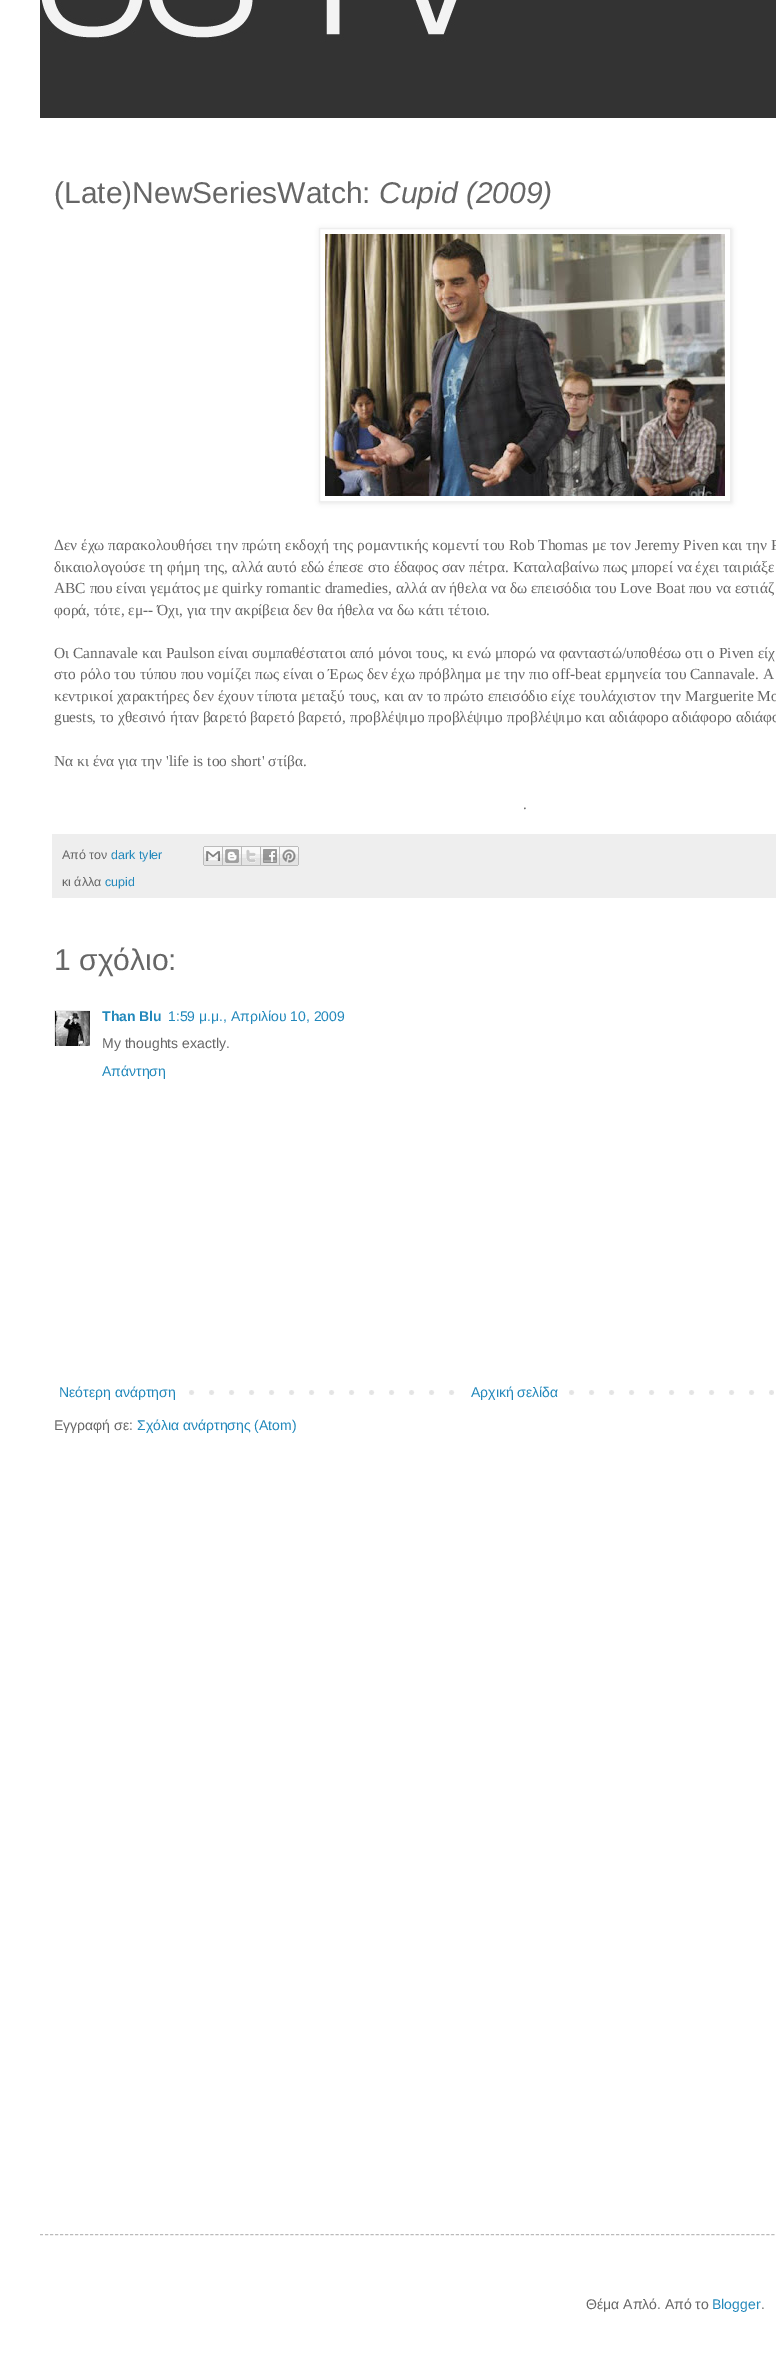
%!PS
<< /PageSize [776 2354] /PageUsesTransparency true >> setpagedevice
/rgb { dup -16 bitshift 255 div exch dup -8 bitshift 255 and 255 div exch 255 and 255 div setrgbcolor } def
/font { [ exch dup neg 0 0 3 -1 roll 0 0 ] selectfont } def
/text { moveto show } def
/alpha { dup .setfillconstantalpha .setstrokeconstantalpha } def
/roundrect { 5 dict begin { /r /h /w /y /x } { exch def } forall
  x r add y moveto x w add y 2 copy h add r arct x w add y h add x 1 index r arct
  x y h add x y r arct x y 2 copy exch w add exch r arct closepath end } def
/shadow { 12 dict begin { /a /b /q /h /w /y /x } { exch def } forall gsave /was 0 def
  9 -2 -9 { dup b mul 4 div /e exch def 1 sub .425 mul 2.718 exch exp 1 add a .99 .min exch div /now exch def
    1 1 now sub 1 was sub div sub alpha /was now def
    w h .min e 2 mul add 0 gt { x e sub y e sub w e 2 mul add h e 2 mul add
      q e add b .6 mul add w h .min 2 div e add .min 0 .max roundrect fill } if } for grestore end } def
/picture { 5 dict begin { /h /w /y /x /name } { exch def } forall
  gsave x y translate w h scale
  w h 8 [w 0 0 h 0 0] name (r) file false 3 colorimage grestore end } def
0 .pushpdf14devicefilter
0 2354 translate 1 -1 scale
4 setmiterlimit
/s1 { /LiberationSans-Regular 30 font 16#666666 rgb } def
/s2 { /LiberationSans-Italic 30 font 16#666666 rgb } def
/s3 { /LiberationSerif-Regular 15.4 font 16#666666 rgb } def
/s4 { /LiberationSans-Regular 12.5 font 16#666666 rgb } def
/s5 { /LiberationSans-Regular 12.5 font 16#2288BB rgb } def
/s6 { /LiberationSans-Bold 14 font 16#2288BB rgb } def
/s7 { /LiberationSans-Regular 14 font 16#2288BB rgb } def
/s8 { /LiberationSans-Regular 14 font 16#666666 rgb } def
16#FFFFFF rgb
0 0 776 2354 rectfill
(pic1.raw) 40 0 736 118 picture
s1
(\(Late\)NewSeriesWatch:) 54 203 text
s2
(Cupid \(2009\)) 379 203 text
gsave
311 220 moveto 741 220 lineto 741 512 lineto 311 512 lineto closepath 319 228 moveto 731 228 lineto 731 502 lineto 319 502 lineto closepath eoclip newpath
16#000000 rgb
320 229 412 274 0 2.5 0.1 shadow
grestore
16#EEEEEE rgb
319.5 228.5 411 273 rectstroke
(pic2.raw) 325 234 400 262 picture
s3
(Δεν έχω παρακολουθήσει την πρώτη εκδοχή της ρομαντικής κομεντί του Rob Thomas με τον Jeremy Piven και την P) 54 550 text
(δικαιολογούσε τη φήμη της, αλλά αυτό εδώ έπεσε στο έδαφος σαν πέτρα. Καταλαβαίνω πως μπορεί να έχει ταιριάξε) 54 572 text
(ABC που είναι γεμάτος με quirky romantic dramedies, αλλά αν ήθελα να δω επεισόδια του Love Boat που να εστιάζ) 54 593 text
(φορά, τότε, εμ-- Όχι, για την ακρίβεια δεν θα ήθελα να δω κάτι τέτοιο.) 54 615 text
(Οι Cannavale και Paulson είναι συμπαθέστατοι από μόνοι τους, κι ενώ μπορώ να φανταστώ/υποθέσω οτι ο Piven είχ) 54 658 text
(στο ρόλο του τύπου που νομίζει πως είναι ο Έρως δεν έχω πρόβλημα με την πιο off-beat ερμηνεία του Cannavale. Α) 54 679 text
(κεντρικοί χαρακτήρες δεν έχουν τίποτα μεταξύ τους, και αν το πρώτο επεισόδιο είχε τουλάχιστον την Marguerite Mo) 54 701 text
(guests, το χθεσινό ήταν βαρετό βαρετό βαρετό, προβλέψιμο προβλέψιμο προβλέψιμο και αδιάφορο αδιάφορο αδιάφο) 54 722 text
(Nα κι ένα για την 'life is too short' στίβα.) 54 766 text
(.) 523 809 text
16#EEEEEE rgb
52 834 724 64 rectfill
s4
(Από τον) 62 859 text
s5
(dark tyler) 111 859 text
(pic3.raw) 203 846 20 20 picture
(pic4.raw) 223 846 19 20 picture
(pic5.raw) 242 846 19 20 picture
(pic6.raw) 261 846 19 20 picture
(pic7.raw) 280 846 19 20 picture
s4
(κι άλλα) 62 886 text
s5
(cupid) 105 886 text
s1
(1 σχόλιο:) 54 970 text
gsave
54 1010 36 36 rectclip
16#EEEEEE rgb
54.5 1010.5 37 37 rectstroke
grestore
(pic8.raw) 55 1011 35 35 picture
s6
(Than Blu) 102 1021 text
s7
(1:59 μ.μ., Απριλίου 10, 2009) 168 1021 text
s8
(My thoughts exactly.) 102 1048 text
s7
(Απάντηση) 102 1076 text
(pic9.raw) 189 1390 585 5 picture
(Νεότερη ανάρτηση) 59 1397 text
16#FFFFFF rgb
469 1390 86 5 rectfill
s7
(Αρχική σελίδα) 471 1397 text
s8
(Εγγραφή σε:) 54 1430 text
s7
(Σχόλια ανάρτησης \(Atom\)) 137 1430 text
16#BBBBBB rgb
[3 2.01] 0 setdash
40 2234.5 moveto 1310 2234.5 lineto stroke
s8
(Θέμα Απλό. Από το) 586 2309 text
s7
(Blogger) 712 2309 text
s8
(.) 761 2309 text
.poppdf14devicefilter showpage
